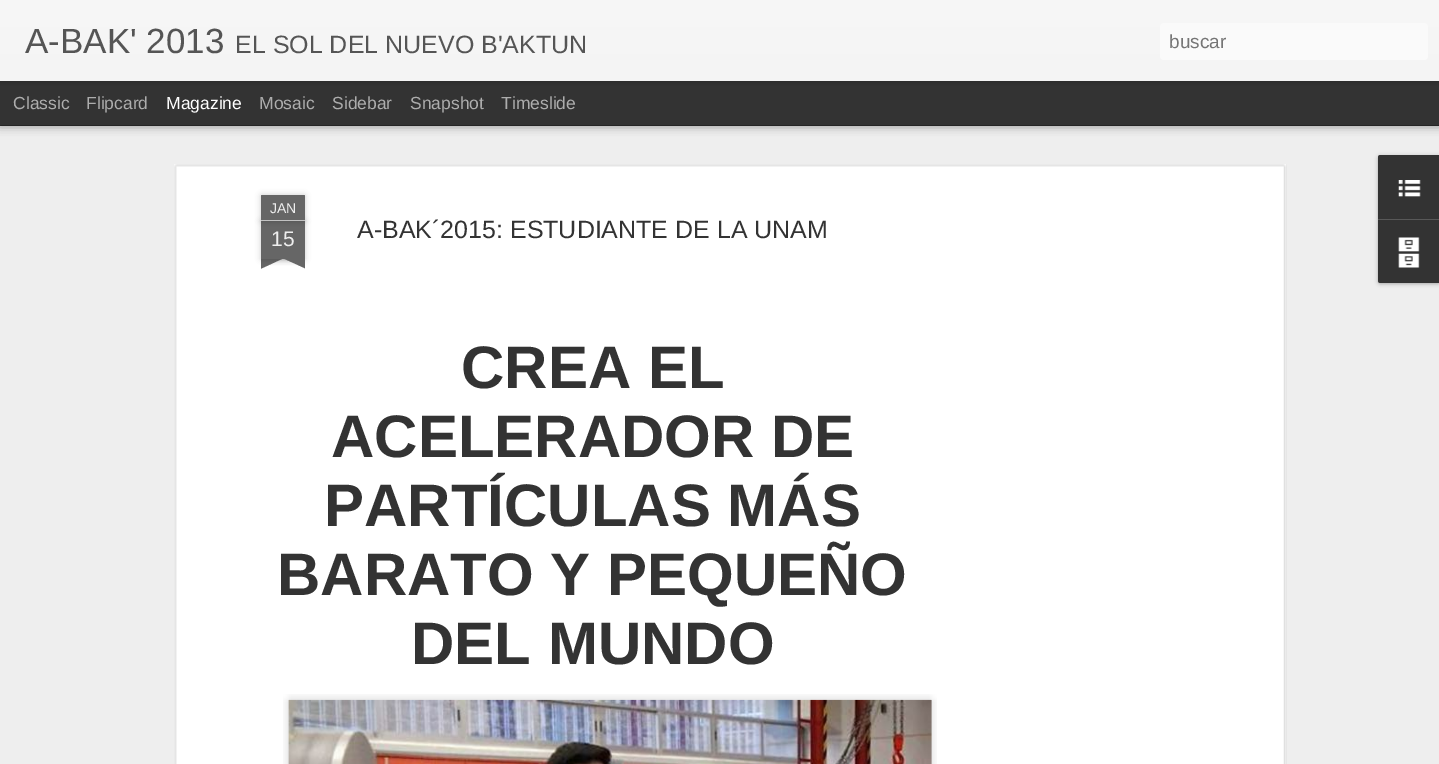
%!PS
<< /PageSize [1439 764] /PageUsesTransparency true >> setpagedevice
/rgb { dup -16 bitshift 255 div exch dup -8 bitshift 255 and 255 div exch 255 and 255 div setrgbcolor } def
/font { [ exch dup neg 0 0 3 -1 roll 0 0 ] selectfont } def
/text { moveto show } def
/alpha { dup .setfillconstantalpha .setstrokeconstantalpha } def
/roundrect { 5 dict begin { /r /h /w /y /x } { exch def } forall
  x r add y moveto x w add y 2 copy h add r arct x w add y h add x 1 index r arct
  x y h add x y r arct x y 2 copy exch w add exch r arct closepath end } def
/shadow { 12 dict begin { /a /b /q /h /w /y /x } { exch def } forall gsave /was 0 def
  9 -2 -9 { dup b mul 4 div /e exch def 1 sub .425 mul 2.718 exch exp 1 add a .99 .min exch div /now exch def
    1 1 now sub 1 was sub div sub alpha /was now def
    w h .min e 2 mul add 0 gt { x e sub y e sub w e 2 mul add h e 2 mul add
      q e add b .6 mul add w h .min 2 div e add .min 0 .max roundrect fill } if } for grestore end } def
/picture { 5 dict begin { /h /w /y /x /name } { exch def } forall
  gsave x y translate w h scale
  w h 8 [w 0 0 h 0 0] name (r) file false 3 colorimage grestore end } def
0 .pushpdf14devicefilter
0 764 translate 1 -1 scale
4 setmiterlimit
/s1 { /LiberationSans-Regular 35 font 16#555555 rgb } def
/s2 { /LiberationSans-Regular 25 font 16#555555 rgb } def
/s3 { /LiberationSans-Regular 19 font 16#757575 rgb } def
/s4 { /LiberationSans-Regular 17.5 font 16#ADADAD rgb } def
/s5 { /LiberationSans-Regular 17.5 font 16#FFFFFF rgb } def
/s6 { /LiberationSans-Regular 14 font 16#EEEEEE rgb } def
/s7 { /LiberationSans-Regular 21 font 16#EEEEEE rgb } def
/s8 { /LiberationSans-Regular 25 font 16#333333 rgb } def
/s9 { /LiberationSans-Bold 60 font 16#333333 rgb } def
16#333333 rgb
0 0 1439 764 rectfill
16#EEEEEE rgb
0 126 1439 638 rectfill
16#000000 rgb
0 81 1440 44 0 5 0.5 shadow
16#333333 rgb
0 81 1439 44 rectfill
16#000000 rgb
0 0 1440 81 0 3 0.3 shadow
gsave 0 0 moveto 1439 0 lineto 1439 81 lineto 0 81 lineto closepath clip newpath
<< /ShadingType 2 /ColorSpace /DeviceRGB /Coords [0 0 0 81] /Extend [true true] /Function << /FunctionType 2 /Domain [0 1] /C0 [0.969 0.969 0.969] /C1 [0.957 0.957 0.957] /N 1 >> >> shfill grestore
s1
(A-BAK' 2013) 25 53 text
s2
(EL SOL DEL NUEVO B'AKTUN) 235 53 text
16#FAFAFA rgb
1160 23 268 37 4 roundrect fill
s3
(buscar) 1169 48 text
s4
(Classic) 13 109 text
(Flipcard) 86 109 text
s5
(Magazine) 166 109 text
s4
(Mosaic) 259 109 text
(Sidebar) 332 109 text
(Snapshot) 410 109 text
(Timeslide) 501 109 text
16#FFFFFF rgb
174 164 1112 600 rectfill
(pic1.raw) 174 164 1113 600 picture
16#000000 rgb
261 221 44 38 0 3 0.2 shadow
16#666666 rgb
261 221 44 38 rectfill
16#000000 rgb
261 195 44 26 1 3 0.2 shadow
16#666666 rgb
262 195 moveto 304 195 lineto 304.5 195 305 195.5 305 196 curveto 305 221 lineto 261 221 lineto 261 196 lineto 261 195.5 261.5 195 262 195 curveto closepath fill
16#C2C2C2 rgb
261 220 44 1 rectfill
s6
(JAN) 270 213 text
s7
(15) 271 246 text
gsave
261 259 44 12 rectclip
16#000000 rgb
250 246 63 13 0 3 0.2 shadow
grestore
gsave
261 259 44 12 rectclip
16#666666 rgb
250 260 moveto 307 234 lineto 312 245 lineto 256 271 lineto closepath fill
grestore
gsave
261 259 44 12 rectclip
16#000000 rgb
254 246 62 13 0 3 0.2 shadow
grestore
gsave
261 259 44 12 rectclip
16#666666 rgb
259 234 moveto 316 260 lineto 311 271 lineto 254 245 lineto closepath fill
grestore
s8
(A-BAK´2015: ESTUDIANTE DE LA UNAM) 357 238 text
s9
(CREA EL) 461 388 text
(ACELERADOR DE) 331 457 text
(PARTÍCULAS MÁS) 324 526 text
(BARATO Y PEQUEÑO) 277 595 text
(DEL MUNDO) 411 664 text
(pic2.raw) 283 694 654 70 picture
(pic3.raw) 288 699 644 65 picture
16#000000 rgb
1378 156 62 128 2.5 2 0.3 shadow
16#333333 rgb
1380.5 155 moveto 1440 155 lineto 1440 219 lineto 1378 219 lineto 1378 157.5 lineto 1378 156 1379 155 1380.5 155 curveto closepath fill
(pic4.raw) 1398 180 23 17 picture
1378 219 moveto 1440 219 lineto 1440 283 lineto 1380.5 283 lineto 1379 283 1378 282 1378 280.5 curveto closepath fill
16#585858 rgb
1378 219 61 1 rectfill
(pic5.raw) 1398 237 22 31 picture
.poppdf14devicefilter showpage
